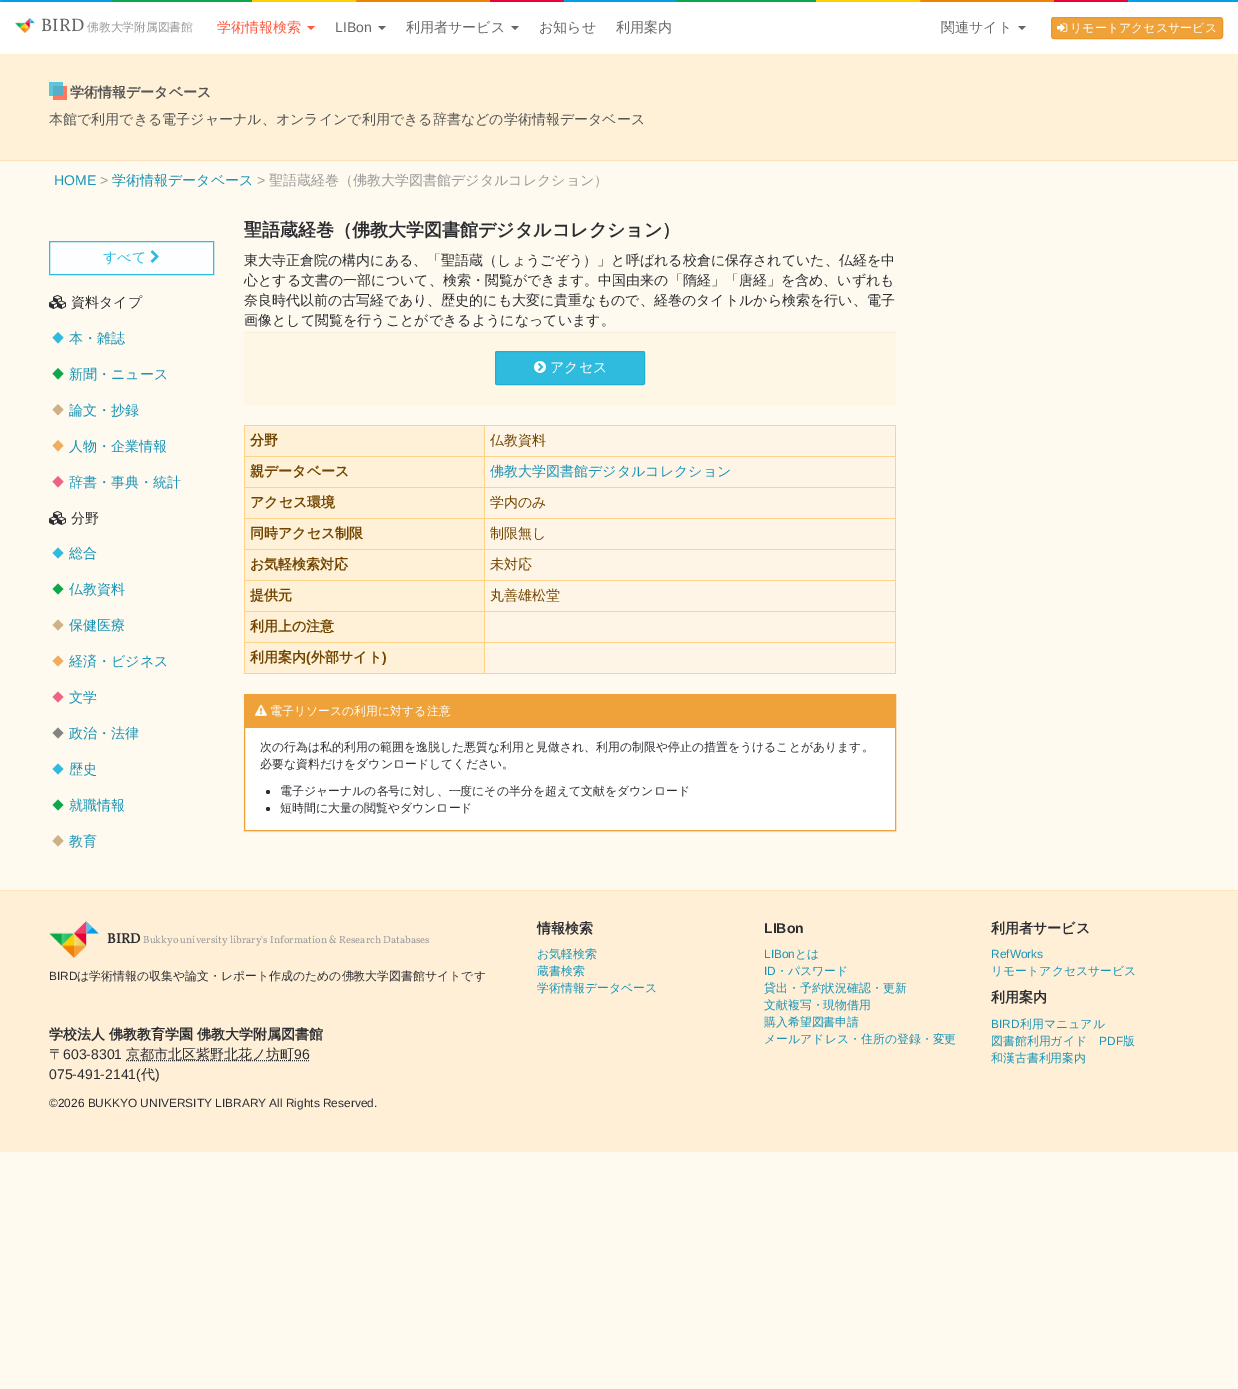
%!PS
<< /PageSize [1238 1389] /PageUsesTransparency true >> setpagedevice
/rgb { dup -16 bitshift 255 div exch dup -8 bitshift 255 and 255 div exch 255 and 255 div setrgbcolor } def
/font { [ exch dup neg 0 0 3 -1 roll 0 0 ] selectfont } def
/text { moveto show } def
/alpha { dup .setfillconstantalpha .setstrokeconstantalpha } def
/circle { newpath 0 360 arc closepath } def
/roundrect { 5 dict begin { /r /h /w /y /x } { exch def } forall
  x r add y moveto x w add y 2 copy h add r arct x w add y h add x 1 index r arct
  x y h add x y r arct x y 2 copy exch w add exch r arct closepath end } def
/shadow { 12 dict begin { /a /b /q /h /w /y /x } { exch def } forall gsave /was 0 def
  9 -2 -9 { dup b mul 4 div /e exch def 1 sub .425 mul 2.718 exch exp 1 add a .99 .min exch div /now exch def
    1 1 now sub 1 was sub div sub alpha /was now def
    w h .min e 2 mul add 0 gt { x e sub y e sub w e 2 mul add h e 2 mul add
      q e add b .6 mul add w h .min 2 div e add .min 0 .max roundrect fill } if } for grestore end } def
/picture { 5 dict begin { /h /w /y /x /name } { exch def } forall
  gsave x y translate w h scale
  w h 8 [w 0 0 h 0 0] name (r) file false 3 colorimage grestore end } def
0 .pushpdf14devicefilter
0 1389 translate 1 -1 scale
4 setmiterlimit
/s1 { /Vollkorn-Regular 18 font 16#666666 rgb } def
/s2 { /WenQuanYiZenHei-Medium 11.75 font 16#999999 rgb } def
/s3 { /WenQuanYiZenHei-Medium 14 font 16#FF5A40 rgb } def
/s4 { /LiberationSans-Regular 14 font 16#666666 rgb } def
/s5 { /WenQuanYiZenHei-Medium 14 font 16#666666 rgb } def
/s6 { /WenQuanYiZenHei-Medium 12 font 16#FFFFFF rgb } def
/s7 { /WenQuanYiZenHei-Bold 14 font 16#555555 rgb } def
/s8 { /WenQuanYiZenHei-Medium 14 font 16#555555 rgb } def
/s9 { /LiberationSans-Regular 14 font 16#1993B6 rgb } def
/s10 { /LiberationSans-Regular 14 font 16#999999 rgb } def
/s11 { /WenQuanYiZenHei-Medium 14 font 16#1993B6 rgb } def
/s12 { /WenQuanYiZenHei-Medium 14 font 16#999999 rgb } def
/s13 { /WenQuanYiZenHei-Medium 14 font 16#2EBBDD rgb } def
/s14 { /WenQuanYiZenHei-Medium 14 font 16#2B2D31 rgb } def
/s15 { /WenQuanYiZenHei-Bold 18 font 16#2B2D31 rgb } def
/s16 { /WenQuanYiZenHei-Medium 14 font 16#FFFFFF rgb } def
/s17 { /WenQuanYiZenHei-Bold 14 font 16#714500 rgb } def
/s18 { /WenQuanYiZenHei-Medium 14 font 16#714500 rgb } def
/s19 { /LiberationSans-Bold 14 font 16#714500 rgb } def
/s20 { /WenQuanYiZenHei-Medium 11.9 font 16#FFFFFF rgb } def
/s21 { /WenQuanYiZenHei-Medium 11.9 font 16#2B2D31 rgb } def
/s22 { /Vollkorn-Bold 14 font 16#2B2D31 rgb } def
/s23 { /Vollkorn-Regular 10.5 font 16#999999 rgb } def
/s24 { /LiberationSans-Regular 11.9 font 16#2B2D31 rgb } def
/s25 { /WenQuanYiZenHei-Bold 14 font 16#2B2D31 rgb } def
/s26 { /LiberationSans-Regular 14 font 16#2B2D31 rgb } def
/s27 { /WenQuanYiZenHei-Medium 11.9 font 16#1993B6 rgb } def
/s28 { /LiberationSans-Bold 14 font 16#2B2D31 rgb } def
/s29 { /LiberationSans-Regular 11.9 font 16#1993B6 rgb } def
16#FFFAF0 rgb
0 0 1238 1389 rectfill
16#FFFFFF rgb
0 0 1238 54 rectfill
(pic1.raw) 0 0 1238 2 picture
16#FFF0CF rgb
0 54 1238 1 rectfill
(pic2.raw) 15 18 20 15 picture
s1
(BIRD) 41 31 text
s2
(佛教大学附属図書館) 87 31 text
s3
(学術情報検索) 217 32 text
307 26 moveto 315 26 lineto 311 30 lineto closepath fill
s4
(LIBon) 335 32 text
378 26 moveto 386 26 lineto 382 30 lineto closepath fill
s5
(利用者サービス) 406 32 text
511 26 moveto 519 26 lineto 515 30 lineto closepath fill
(お知らせ) 539 32 text
(利用案内) 616 32 text
(関連サイト) 941 32 text
1018 26 moveto 1026 26 lineto 1022 30 lineto closepath fill
16#EEA239 rgb
1051.5 17.5 171 21 2.5 roundrect gsave fill grestore
16#EC9722 rgb
stroke
(pic3.raw) 1057 23 11 9 picture
s6
(リモートアクセスサービス) 1070 32 text
16#FFF1D7 rgb
0 55 1238 105 rectfill
16#58C6DC rgb
49 82 14 14 rectfill
16#FFE0BD rgb
0 160 1238 1 rectfill
16#FF785E rgb
53 86 14 14 rectfill
16#58AEC4 rgb
53 86 10 10 rectfill
s7
(学術情報データベース) 70 97 text
s8
(本館で利用できる電子ジャーナル、オンラインで利用できる辞書などの学術情報データベース) 49 124 text
s9
(HOME) 54 185 text
s10
(>) 100 185 text
s11
(学術情報データベース) 112 185 text
s10
(>) 257 185 text
s12
(聖語蔵経巻（佛教大学図書館デジタルコレクション）) 269 185 text
16#FCFEFF rgb
49.5 241.5 moveto 213.5 241.5 lineto 213.5 274.5 lineto 49.5 274.5 lineto closepath gsave fill grestore
16#2EBBDD rgb
stroke
(すべて) 103 262 text
(pic4.raw) 150 250 9 13 picture
(pic5.raw) 49 295 17 14 picture
s14
(資料タイプ) 71 307 text
16#2EBBDD rgb
58 332 moveto 63.5 337.5 lineto 58 343.5 lineto 52.5 337.5 lineto closepath fill
s11
(本・雑誌) 69 343 text
16#0FA74C rgb
58 368 moveto 63.5 373.5 lineto 58 379.5 lineto 52.5 373.5 lineto closepath fill
s11
(新聞・ニュース) 69 379 text
16#CFB187 rgb
58 404 moveto 63.5 409.5 lineto 58 415.5 lineto 52.5 409.5 lineto closepath fill
s11
(論文・抄録) 69 415 text
16#EFAD60 rgb
58 440 moveto 63.5 445.5 lineto 58 451.5 lineto 52.5 445.5 lineto closepath fill
s11
(人物・企業情報) 69 451 text
16#EC6384 rgb
58 476 moveto 63.5 481.5 lineto 58 487.5 lineto 52.5 481.5 lineto closepath fill
s11
(辞書・事典・統計) 69 487 text
(pic5.raw) 49 511 17 14 picture
s14
(分野) 71 523 text
16#2EBBDD rgb
58 547.5 moveto 63.5 553 lineto 58 558.5 lineto 52.5 553 lineto closepath fill
s11
(総合) 69 558 text
16#0FA74C rgb
58 583.5 moveto 63.5 589 lineto 58 594.5 lineto 52.5 589 lineto closepath fill
s11
(仏教資料) 69 594 text
16#CFB187 rgb
58 619.5 moveto 63.5 625 lineto 58 630.5 lineto 52.5 625 lineto closepath fill
s11
(保健医療) 69 630 text
16#EFAD60 rgb
58 655.5 moveto 63.5 661 lineto 58 666.5 lineto 52.5 661 lineto closepath fill
s11
(経済・ビジネス) 69 666 text
16#EC6384 rgb
58 691.5 moveto 63.5 697 lineto 58 702.5 lineto 52.5 697 lineto closepath fill
s11
(文学) 69 702 text
16#848484 rgb
58 727.5 moveto 63.5 733 lineto 58 738.5 lineto 52.5 733 lineto closepath fill
s11
(政治・法律) 69 738 text
16#2EBBDD rgb
58 763.5 moveto 63.5 769 lineto 58 774.5 lineto 52.5 769 lineto closepath fill
s11
(歴史) 69 774 text
16#0FA74C rgb
58 799.5 moveto 63.5 805 lineto 58 810.5 lineto 52.5 805 lineto closepath fill
s11
(就職情報) 69 810 text
16#CFB187 rgb
58 835 moveto 63.5 841 lineto 58 846.5 lineto 52.5 841 lineto closepath fill
s11
(教育) 69 846 text
s15
(聖語蔵経巻（佛教大学図書館デジタルコレクション）) 244 236 text
s14
(東大寺正倉院の構内にある、「聖語蔵（しょうごぞう）」と呼ばれる校倉に保存されていた、仏経を中) 244 265 text
(心とする文書の一部について、検索・閲覧ができます。中国由来の「隋経」「唐経」を含め、いずれも) 244 285 text
(奈良時代以前の古写経であり、歴史的にも大変に貴重なもので、経巻のタイトルから検索を行い、電子) 244 305 text
(画像として閲覧を行うことができるようになっています。) 244 325 text
16#FFF7E6 rgb
244 331 652 74 2 roundrect fill
16#F2EBDB rgb
246 333 moveto 894 333 lineto 895 333 895 333 895 334 curveto 895 333 895 332 894 332 curveto 246 332 lineto 245 332 245 333 245 334 curveto 245 333 245 333 246 333 curveto closepath fill
16#FFF6E1 rgb
244.5 331.5 651 73 1.5 roundrect stroke
16#2EBBDD rgb
495.5 351.5 149 33 1.5 roundrect gsave fill grestore
16#22AED0 rgb
stroke
(pic6.raw) 534 361 12 12 picture
s16
(アクセス) 550 372 text
16#FFF5E6 rgb
485 426 410 247 rectfill
16#FFD28A rgb
244 425 652 1 rectfill
895 425 1 249 rectfill
244 673 652 1 rectfill
244 425 1 249 rectfill
16#FFF1D7 rgb
245 426 239 30 rectfill
s17
(分野) 250 445 text
16#FFD28A rgb
484 456 412 1 rectfill
484 487 412 1 rectfill
484 518 412 1 rectfill
484 549 412 1 rectfill
484 580 412 1 rectfill
484 611 412 1 rectfill
484 642 412 1 rectfill
484 642 1 32 rectfill
244 642 241 1 rectfill
484 611 1 32 rectfill
244 611 241 1 rectfill
484 580 1 32 rectfill
244 580 241 1 rectfill
484 549 1 32 rectfill
244 549 241 1 rectfill
484 518 1 32 rectfill
244 518 241 1 rectfill
484 487 1 32 rectfill
244 487 241 1 rectfill
484 456 1 32 rectfill
244 456 241 1 rectfill
484 425 1 32 rectfill
s18
(仏教資料) 490 445 text
16#FFF1D7 rgb
245 457 239 30 rectfill
s17
(親データベース) 250 476 text
s11
(佛教大学図書館デジタルコレクション) 490 476 text
16#FFF1D7 rgb
245 488 239 30 rectfill
s17
(アクセス環境) 250 507 text
s18
(学内のみ) 490 507 text
16#FFF1D7 rgb
245 519 239 30 rectfill
s17
(同時アクセス制限) 250 538 text
s18
(制限無し) 490 538 text
16#FFF1D7 rgb
245 550 239 30 rectfill
s17
(お気軽検索対応) 250 569 text
s18
(未対応) 490 569 text
16#FFF1D7 rgb
245 581 239 30 rectfill
s17
(提供元) 250 600 text
s18
(丸善雄松堂) 490 600 text
16#FFF1D7 rgb
245 612 239 30 rectfill
s17
(利用上の注意) 250 631 text
16#FFF1D7 rgb
245 643 239 30 rectfill
s17
(利用案内) 250 662 text
s19
(\() 306 662 text
s17
(外部サイト) 311 662 text
s19
(\)) 382 662 text
16#000000 rgb
244 695 652 137 0 0.5 0.05 shadow
16#FFFFFF rgb
245 728 650 102 rectfill
16#EEA239 rgb
244.5 694.5 651 136 rectstroke
245 695 650 33 rectfill
(pic7.raw) 255 704 12 12 picture
s20
(電子リソースの利用に対する注意) 270 715 text
s21
(次の行為は私的利用の範囲を逸脱した悪質な利用と見做され、利用の制限や停止の措置をうけることがあります。) 260 751 text
(必要な資料だけをダウンロードしてください。) 260 768 text
268 792 2 circle fill
(電子ジャーナルの各号に対し、一度にその半分を超えて文献をダウンロード) 280 795 text
268 809 2 circle fill
(短時間に大量の閲覧やダウンロード) 280 812 text
16#FFEFD7 rgb
0 891 1238 261 rectfill
16#FFE5BD rgb
0 890 1238 1 rectfill
(pic8.raw) 49 921 50 37 picture
s22
(BIRD) 107 943 text
s23
(Bukkyo university library's Information & Research Databases) 143 943 text
s24
(BIRD) 49 980 text
s21
(は学術情報の収集や論文・レポート作成のための佛教大学図書館サイトです) 77 980 text
s25
(学校法人 佛教教育学園 佛教大学附属図書館) 49 1039 text
s14
(〒) 49 1059 text
s26
(603-8301) 63 1059 text
[1 1] 0 setdash
126 1060.5 moveto 168 1060.5 lineto stroke
s14
(京都市) 126 1059 text
168 1060.5 moveto 310 1060.5 lineto stroke
(北区紫野北花ノ坊町) 168 1059 text
s26
(96) 294 1059 text
(075-491-2141\() 49 1079 text
s14
(代) 141 1079 text
s26
(\)) 155 1079 text
s25
(情報検索) 537 933 text
s27
(お気軽検索) 537 958 text
(蔵書検索) 537 975 text
(学術情報データベース) 537 992 text
s28
(LIBon) 764 933 text
s29
(LIBon) 764 958 text
s27
(とは) 795 958 text
s29
(ID) 764 975 text
s27
(・パスワード) 776 975 text
(貸出・予約状況確認・更新) 764 992 text
(文献複写・現物借用) 764 1009 text
(購入希望図書申請) 764 1026 text
(メールアドレス・住所の登録・変更) 764 1043 text
s25
(利用者サービス) 991 933 text
s29
(RefWorks) 991 958 text
s27
(リモートアクセスサービス) 991 975 text
s25
(利用案内) 991 1002 text
s29
(BIRD) 991 1028 text
s27
(利用マニュアル) 1020 1028 text
(図書館利用ガイド) 991 1045 text
s29
(PDF) 1099 1045 text
s27
(版) 1123 1045 text
(和漢古書利用案内) 991 1062 text
s24
(©2026 BUKKYO UNIVERSITY LIBRARY All Rights Reserved.) 49 1107 text
.poppdf14devicefilter showpage
